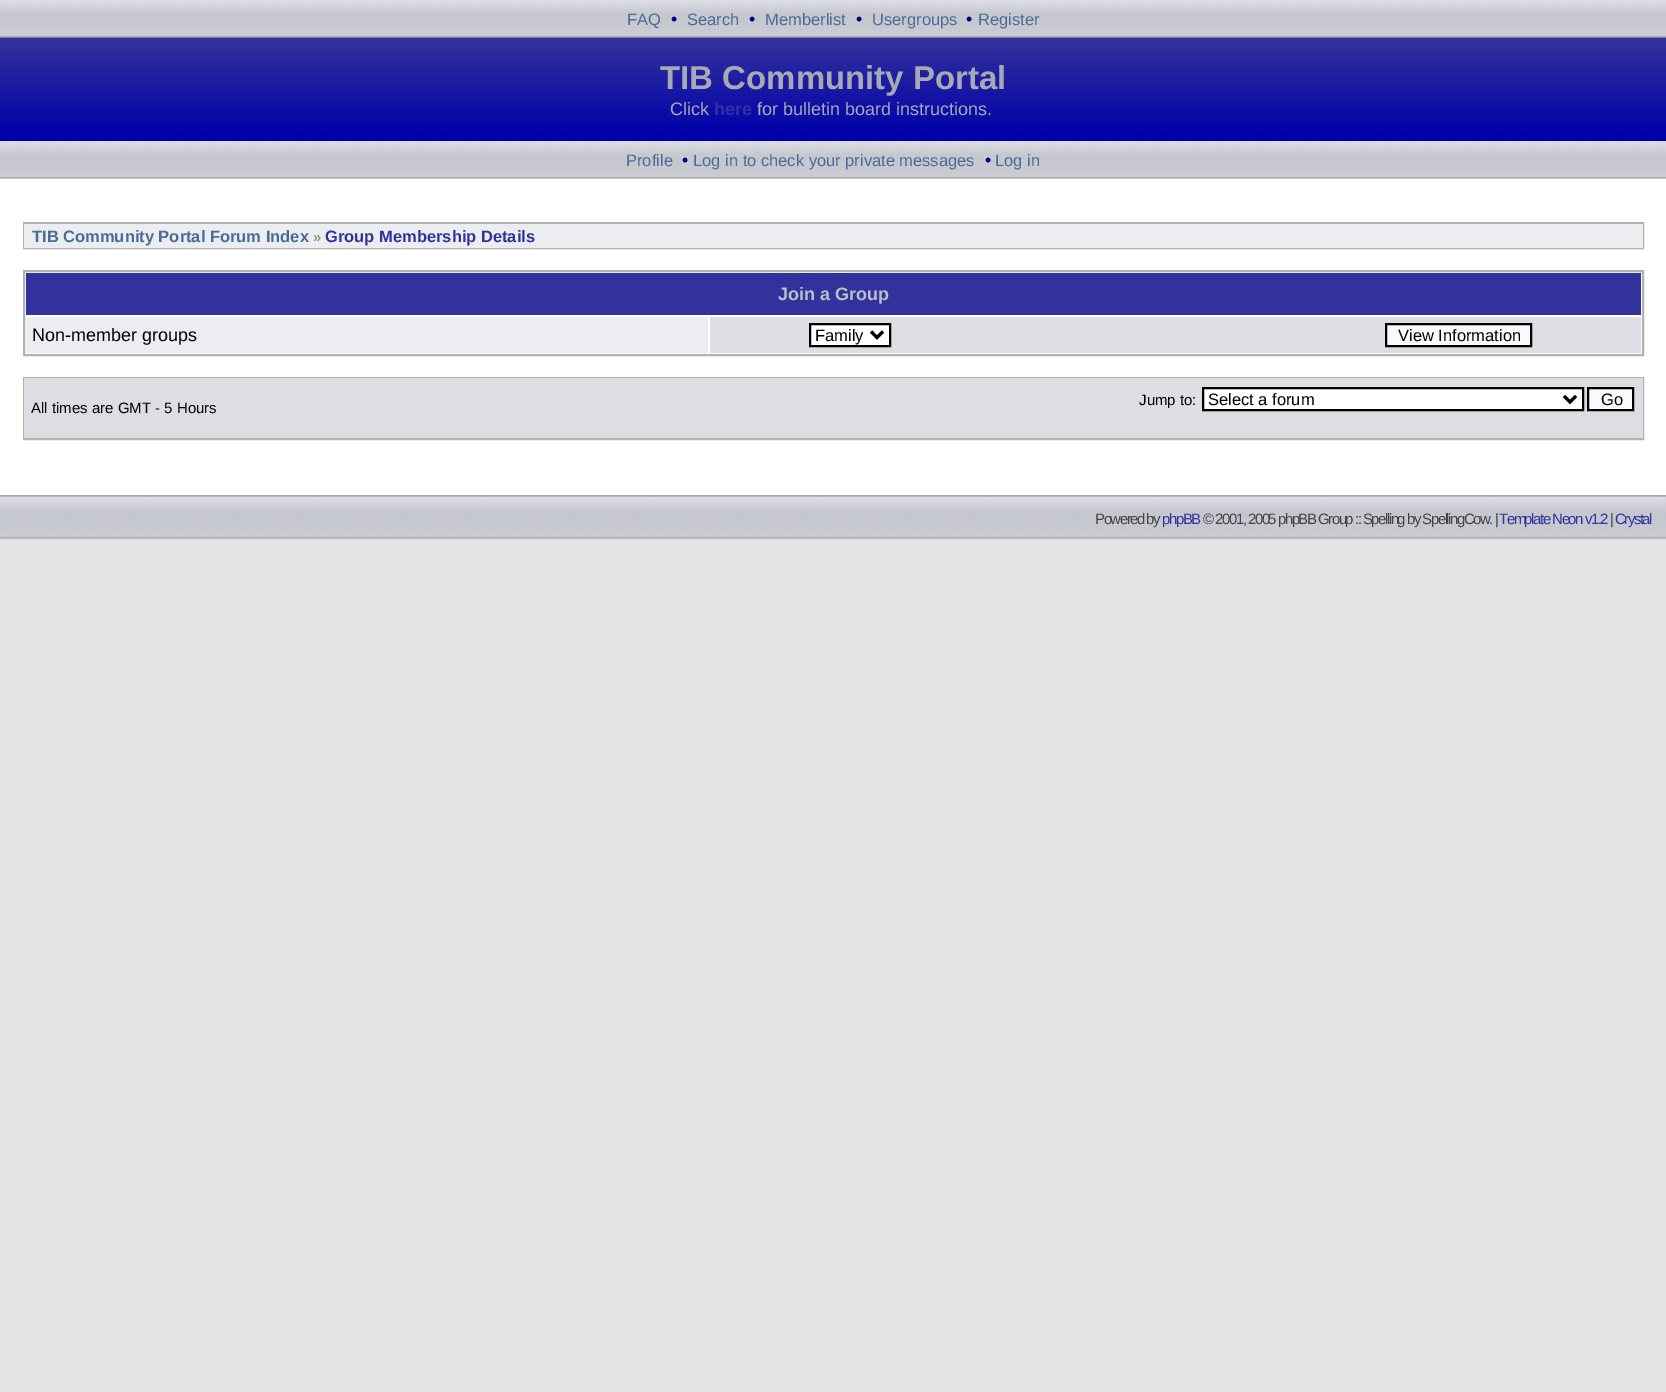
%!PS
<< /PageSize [1666 1392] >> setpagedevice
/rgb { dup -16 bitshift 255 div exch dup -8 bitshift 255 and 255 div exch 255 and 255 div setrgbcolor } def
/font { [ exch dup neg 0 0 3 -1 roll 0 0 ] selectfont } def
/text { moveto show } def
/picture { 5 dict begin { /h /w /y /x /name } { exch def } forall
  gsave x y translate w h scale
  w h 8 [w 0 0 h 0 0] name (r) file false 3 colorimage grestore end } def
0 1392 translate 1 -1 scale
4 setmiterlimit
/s1 { /LiberationSans-Regular 16.5 font 16#4A6C97 rgb } def
/s2 { /LiberationSans-Regular 18 font 16#00008B rgb } def
/s3 { /LiberationSans-Bold 33 font 16#A7A9B4 rgb } def
/s4 { /LiberationSans-Regular 18 font 16#A7A9B4 rgb } def
/s5 { /LiberationSans-Bold 18 font 16#32329C rgb } def
/s6 { /LiberationSans-Bold 16.5 font 16#4A6C97 rgb } def
/s7 { /LiberationSans-Bold 15 font 16#999999 rgb } def
/s8 { /LiberationSans-Bold 16.5 font 16#32329C rgb } def
/s9 { /LiberationSans-Bold 18 font 16#BDBFC8 rgb } def
/s10 { /LiberationSans-Regular 18 font 16#000000 rgb } def
/s11 { /LiberationSans-Regular 16.5 font 16#000000 rgb } def
/s12 { /LiberationSans-Regular 15 font 16#000000 rgb } def
16#E5E5E5 rgb
0 0 1666 1392 rectfill
(pic1.raw) 0 0 1666 38 picture
s1
(FAQ) 627 25 text
s2
(•) 671 25 text
s1
(Search) 687 25 text
s2
(•) 749 25 text
s1
(Memberlist) 765 25 text
s2
(•) 856 25 text
s1
(Usergroups) 872 25 text
s2
(•) 966 25 text
s1
(Register) 978 25 text
(pic2.raw) 0 37 1666 104 picture
s3
(TIB Community Portal) 660 89 text
s4
(Click) 670 115 text
s5
(here) 714 115 text
s4
(for bulletin board instructions.) 757 115 text
16#D1D7DC rgb
0 178 1666 1 rectfill
(pic3.raw) 0 141 1666 38 picture
s1
(Profile) 626 166 text
s2
(•) 682 166 text
s1
(Log in to check your private messages) 693 166 text
s2
(•) 985 166 text
s1
(Log in) 995 166 text
16#FFFFFF rgb
0 179 1666 316 rectfill
16#98AAB1 rgb
0 495 1666 2 rectfill
16#B2B2B2 rgb
2 setlinewidth
24 223 1619 25 rectstroke
16#ECEDF0 rgb
24 224 1619 24 rectfill
s6
(TIB Community Portal Forum Index) 32 242 text
s7
(») 313 242 text
s8
(Group Membership Details) 325 242 text
16#B2B2B2 rgb
24 271 1619 84 rectstroke
16#32329C rgb
26 273 1615 42 rectfill
s9
(Join a Group) 778 300 text
16#ECEDF0 rgb
26 317 682 36 rectfill
s10
(Non-member groups) 32 341 text
16#DDDEE3 rgb
710 317 931 36 rectfill
16#FFFFFF rgb
810 324 moveto 890 324 lineto 890 346 lineto 810 346 lineto closepath gsave fill grestore
16#000000 rgb
stroke
3 setlinewidth
871 331.5 moveto 877 337.5 lineto 883 331.5 lineto stroke
s11
(Family) 815 341 text
16#FAFAFA rgb
1386 324 moveto 1531 324 lineto 1531 346 lineto 1386 346 lineto closepath gsave fill grestore
16#000000 rgb
2 setlinewidth
stroke
(View Information) 1398 341 text
16#B2B2B2 rgb
24 378 1619 61 rectstroke
16#DDDEE3 rgb
24 378 1619 60 rectfill
s12
(All times are GMT - 5 Hours) 31 413 text
(Jump to:) 1139 405 text
16#FFFFFF rgb
1203 388 moveto 1583 388 lineto 1583 410 lineto 1203 410 lineto closepath gsave fill grestore
16#000000 rgb
stroke
3 setlinewidth
1564 396 moveto 1570 402 lineto 1576 396 lineto stroke
s11
(Select a forum) 1208 405 text
16#FAFAFA rgb
1588 388 moveto 1633 388 lineto 1633 410 lineto 1588 410 lineto closepath gsave fill grestore
16#000000 rgb
2 setlinewidth
stroke
(Go) 1601 405 text
(pic4.raw) 0 496 50 44 picture
(pic5.raw) 49 496 1617 44 picture
/LiberationSans-Regular 15 font
16#444444 rgb
1095 524 moveto -1.5 0 (Powered by) ashow
16#32329C rgb
1162 524 moveto -1.5 0 (phpBB) ashow
16#444444 rgb
1203 524 moveto -1.5 0 (© 2001, 2005 phpBB Group :: Spelling by SpellingCow. |) ashow
16#32329C rgb
1499 524 moveto -1.5 0 (Template Neon v1.2) ashow
16#444444 rgb
1610 524 moveto -1.5 0 (|) ashow
16#32329C rgb
1615 524 moveto -1.5 0 (Crystal) ashow
showpage
